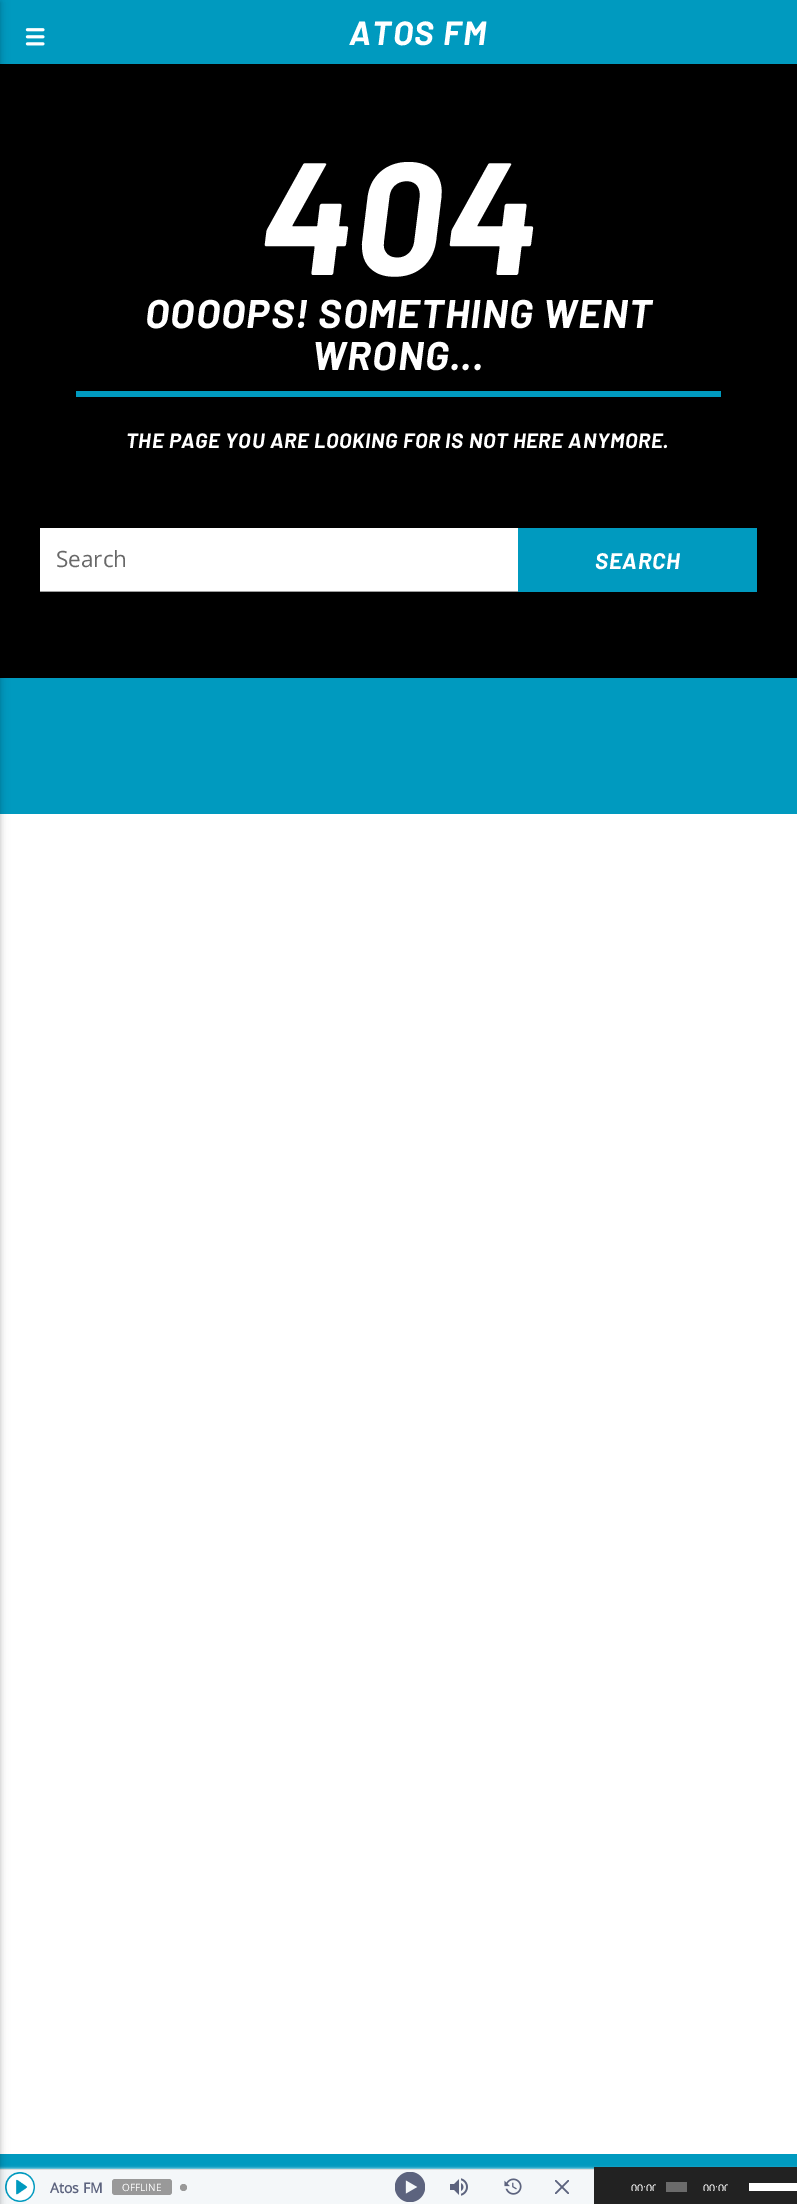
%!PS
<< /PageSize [797 2204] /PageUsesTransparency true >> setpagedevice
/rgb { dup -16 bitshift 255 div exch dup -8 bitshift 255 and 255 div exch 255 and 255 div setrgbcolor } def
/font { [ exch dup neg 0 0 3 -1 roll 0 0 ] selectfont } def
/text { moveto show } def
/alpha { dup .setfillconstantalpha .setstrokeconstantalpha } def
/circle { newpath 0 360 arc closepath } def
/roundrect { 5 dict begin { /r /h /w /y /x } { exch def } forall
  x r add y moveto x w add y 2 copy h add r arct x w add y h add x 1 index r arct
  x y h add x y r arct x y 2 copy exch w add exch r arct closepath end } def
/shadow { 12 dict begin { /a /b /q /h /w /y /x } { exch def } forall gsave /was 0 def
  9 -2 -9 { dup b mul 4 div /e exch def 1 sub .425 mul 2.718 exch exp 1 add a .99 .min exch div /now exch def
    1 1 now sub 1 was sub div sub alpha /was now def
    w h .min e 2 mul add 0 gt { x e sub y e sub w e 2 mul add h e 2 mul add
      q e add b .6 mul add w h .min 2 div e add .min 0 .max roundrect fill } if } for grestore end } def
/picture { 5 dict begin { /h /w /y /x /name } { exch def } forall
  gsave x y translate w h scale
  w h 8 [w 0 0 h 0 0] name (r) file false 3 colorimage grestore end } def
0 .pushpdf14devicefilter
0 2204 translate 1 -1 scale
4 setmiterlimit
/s1 { /OpenSans-Regular 22.5 font 16#686868 rgb } def
/s2 { /OpenSans-Bold 14 font 16#5C637E rgb } def
/s3 { /OpenSans-Regular 10 font 16#FFFFFF rgb } def
/s4 { /LiberationSans-Regular 11 font 16#FFFFFF rgb } def
16#FFFFFF rgb
0 0 797 2204 rectfill
16#009ABF rgb
0 0 797 64 rectfill
16#000000 rgb
0 64 797 614 rectfill
16#009ABF rgb
0 678 797 136 rectfill
0 2154 797 15 rectfill
16#F4F7F9 rgb
0 2169 797 35 0 1.5 1 shadow
0 2170 594 34 rectfill
16#DDDDDD rgb
0 2169 594 1 rectfill
(pic2.raw) 5 2172 30 30 picture
16#000000 rgb
-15 2 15 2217 0 5 0.12 shadow
-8 2 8 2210 0 2.5 0.16 shadow
(pic1.raw) 25 28 20 18 picture
/Barlow-BoldItalic 33.5 font
16#FFFFFF rgb
349 45 moveto 1.5 0 (ATOS FM) ashow
16#009ABF rgb
76 391 645 6 rectfill
/Barlow-BoldItalic 160 font
16#FFFFFF rgb
259 275 moveto 1.2 0 (404) ashow
/Barlow-BoldItalic 40 font
145 328 moveto 1.2 0 (OOOOPS! SOMETHING WENT) ashow
312 370 moveto 1.2 0 (WRONG...) ashow
/Barlow-BoldItalic 20.8 font
126 448 moveto 0.6 0 (THE PAGE YOU ARE LOOKING FOR IS NOT HERE ANYMORE.) ashow
40 528 478 63 rectfill
16#9E9E9E rgb
40 591 478 1 rectfill
s1
(Search) 56 567 text
16#009ABF rgb
518 528 239 64 rectfill
/Barlow-BoldItalic 22.5 font
16#FFFFFF rgb
595 569 moveto 0.75 0 (SEARCH) ashow
s2
(Atos FM) 50 2193 text
16#999999 rgb
112 2179 60 16 3 roundrect fill
s3
(OFFLINE) 122 2191 text
16#999999 rgb
183.5 2187.5 3.5 circle fill
(pic3.raw) 395 2172 30 30 picture
(pic4.raw) 450 2178 18 18 picture
(pic5.raw) 504 2178 18 17 picture
(pic6.raw) 555 2180 14 14 picture
16#222222 rgb
594 2167 203 37 rectfill
gsave
625 2167 31 24 rectclip
s4
(00:00) 631 2192 text
grestore
16#6B6B6B rgb
666 2182 21 10 rectfill
gsave
697 2167 31 24 rectclip
s4
(00:00) 703 2192 text
grestore
16#FFFFFF rgb
749 2183 48 8 rectfill
.poppdf14devicefilter showpage
